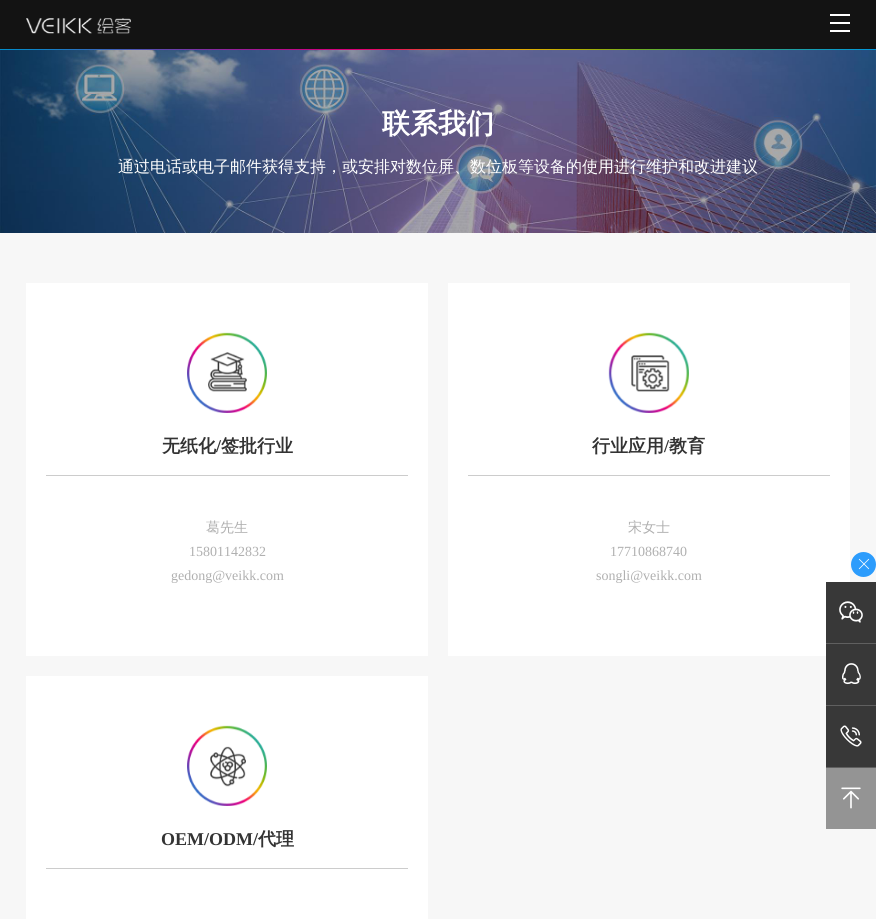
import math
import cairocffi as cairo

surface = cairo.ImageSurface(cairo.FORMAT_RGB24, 876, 919)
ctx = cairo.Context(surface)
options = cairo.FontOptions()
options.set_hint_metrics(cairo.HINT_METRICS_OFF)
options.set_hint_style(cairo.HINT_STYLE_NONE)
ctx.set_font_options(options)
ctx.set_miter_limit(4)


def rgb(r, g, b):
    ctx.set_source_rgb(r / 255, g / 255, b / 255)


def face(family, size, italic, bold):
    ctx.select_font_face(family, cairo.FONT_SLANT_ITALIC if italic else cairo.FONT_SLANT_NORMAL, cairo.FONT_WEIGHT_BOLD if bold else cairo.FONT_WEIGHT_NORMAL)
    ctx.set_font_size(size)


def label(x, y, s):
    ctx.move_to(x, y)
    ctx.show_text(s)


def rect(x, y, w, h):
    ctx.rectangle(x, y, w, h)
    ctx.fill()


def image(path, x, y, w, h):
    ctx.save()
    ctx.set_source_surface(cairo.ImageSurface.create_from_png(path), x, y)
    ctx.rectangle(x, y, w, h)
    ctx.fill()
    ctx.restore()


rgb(247, 247, 247)
ctx.paint()
rgb(19, 19, 19)
rect(0, 0, 876, 49)
image('image0.png', 26, 18, 105, 16)
rgb(255, 255, 255)
rect(830, 14, 20, 2)
rect(830, 22, 20, 2)
rect(830, 30, 20, 2)
image('image1.png', 0, 49, 876, 1)
image('image2.png', 0, 50, 876, 183)
face('WenQuanYi Zen Hei', 28, 0, 1)
label(382, 133, '联系我们')
face('WenQuanYi Zen Hei Medium', 16, 0, 0)
label(118, 172, '通过电话或电子邮件获得支持，或安排对数位屏、数位板等设备的使用进行维护和改进建议')
rect(26, 283, 402, 373)
image('image3.png', 187, 332, 80, 81)
rgb(204, 204, 204)
rect(46, 475, 362, 1)
face('WenQuanYi Zen Hei', 18, 0, 1)
rgb(51, 51, 51)
label(162, 452, '无纸化')
face('Liberation Serif', 18, 0, 1)
label(216, 452, '/')
face('WenQuanYi Zen Hei', 18, 0, 1)
label(221, 452, '签批行业')
face('WenQuanYi Zen Hei Medium', 14, 0, 0)
rgb(176, 176, 176)
label(206, 532, '葛先生')
face('Liberation Serif', 14, 0, 0)
label(189, 556, '15801142832')
label(171, 580, 'gedong@veikk.com')
rgb(255, 255, 255)
rect(448, 283, 402, 373)
image('image4.png', 608, 332, 81, 81)
rgb(204, 204, 204)
rect(468, 475, 362, 1)
face('WenQuanYi Zen Hei', 18, 0, 1)
rgb(51, 51, 51)
label(592, 452, '行业应用')
face('Liberation Serif', 18, 0, 1)
label(664, 452, '/')
face('WenQuanYi Zen Hei', 18, 0, 1)
label(669, 452, '教育')
face('WenQuanYi Zen Hei Medium', 14, 0, 0)
rgb(176, 176, 176)
label(628, 532, '宋女士')
face('Liberation Serif', 14, 0, 0)
label(610, 556, '17710868740')
label(596, 580, 'songli@veikk.com')
rgb(255, 255, 255)
rect(26, 676, 402, 243)
image('image5.png', 187, 725, 80, 81)
rgb(204, 204, 204)
rect(46, 868, 362, 1)
face('Liberation Serif', 18, 0, 1)
rgb(51, 51, 51)
label(161, 845, 'OEM/ODM/')
face('WenQuanYi Zen Hei', 18, 0, 1)
label(258, 845, '代理')
rgb(44, 156, 252)
ctx.new_path()
ctx.arc(863.5, 564.5, 12.5, 0, 2 * math.pi)
ctx.fill()
image('image6.png', 858, 558, 12, 12)
rgb(56, 56, 56)
rect(826, 582, 50, 61)
rgb(96, 96, 96)
rect(826, 643, 50, 1)
image('image7.png', 839, 601, 24, 22)
rgb(56, 56, 56)
rect(826, 644, 50, 61)
rgb(96, 96, 96)
rect(826, 705, 50, 1)
image('image8.png', 842, 663, 19, 22)
rgb(56, 56, 56)
rect(826, 706, 50, 61)
rgb(96, 96, 96)
rect(826, 767, 50, 1)
image('image9.png', 840, 725, 22, 22)
rgb(148, 148, 148)
rect(826, 768, 50, 61)
image('image10.png', 841, 787, 20, 22)
surface.write_to_png('render.png')
